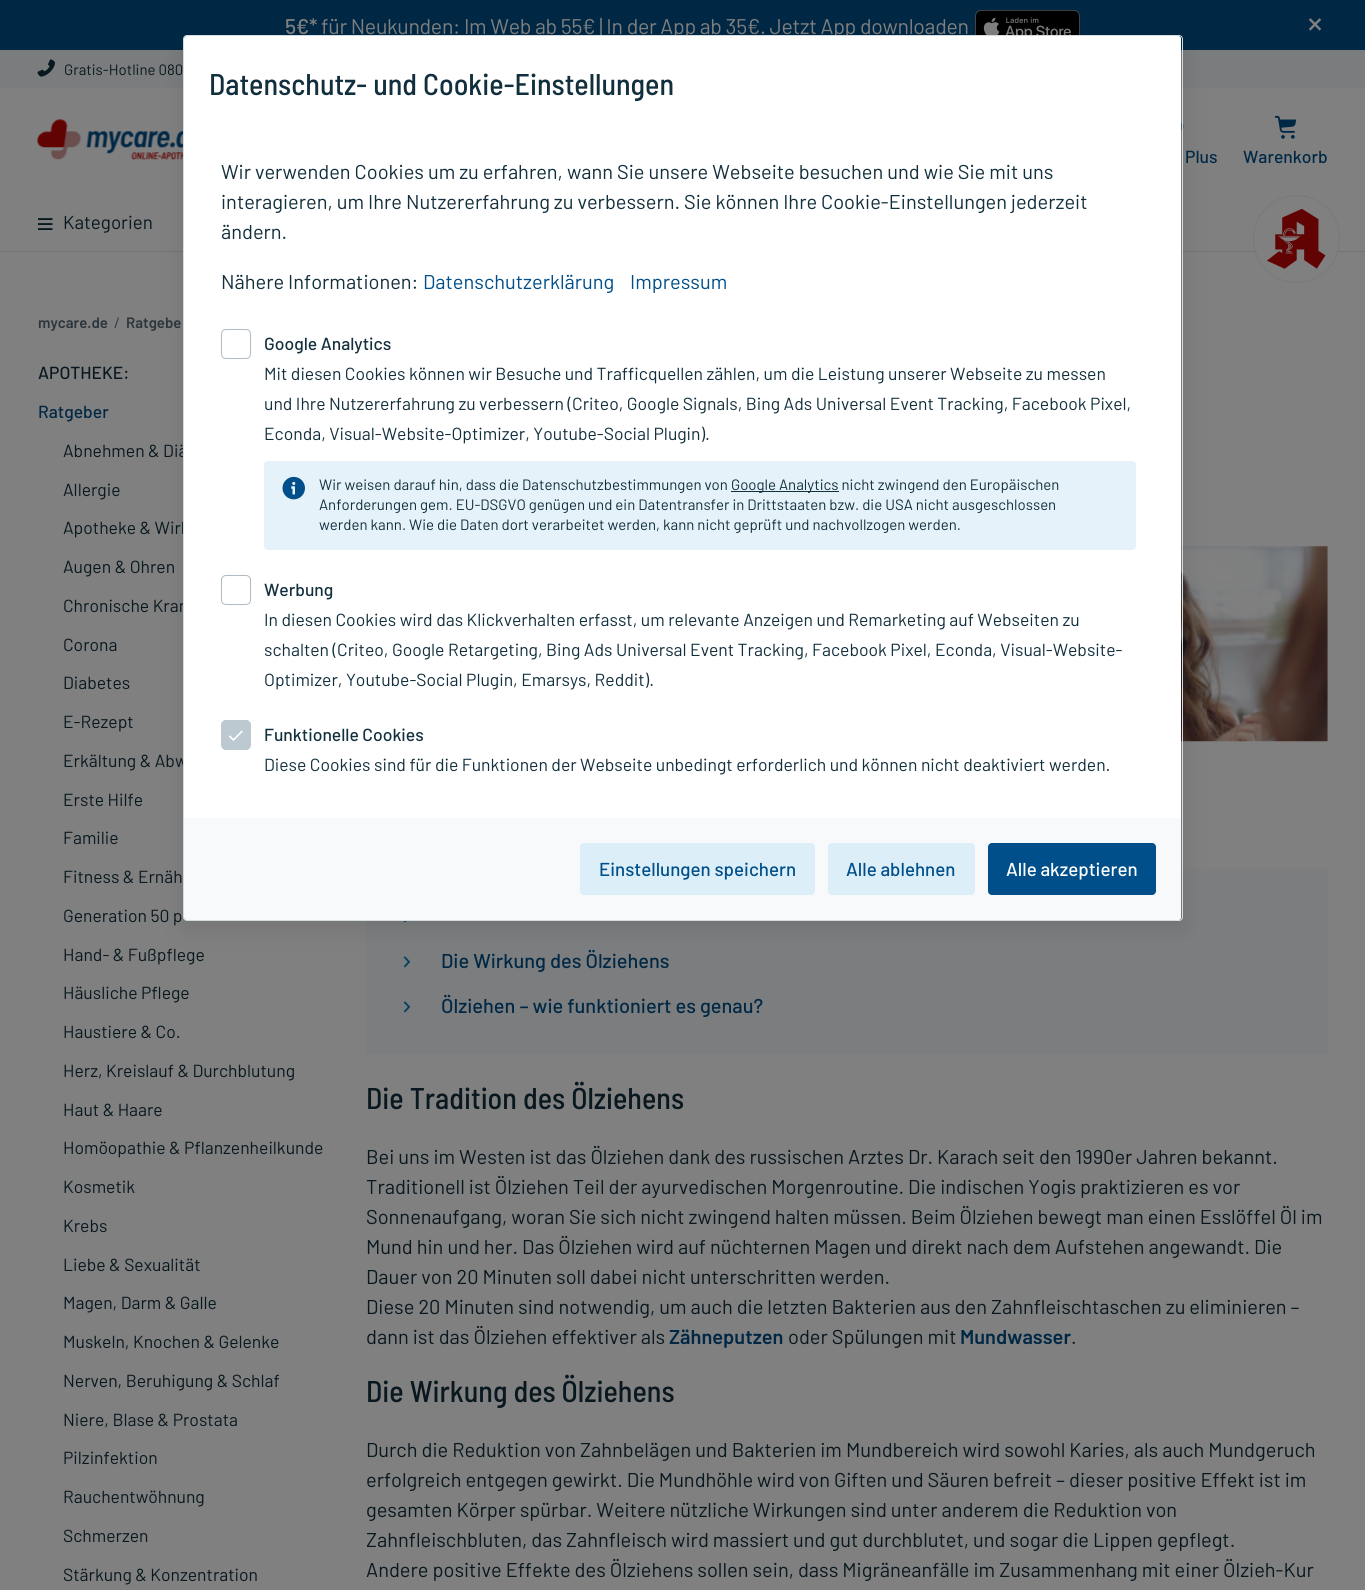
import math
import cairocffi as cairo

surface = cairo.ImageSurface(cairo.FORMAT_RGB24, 1365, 1590)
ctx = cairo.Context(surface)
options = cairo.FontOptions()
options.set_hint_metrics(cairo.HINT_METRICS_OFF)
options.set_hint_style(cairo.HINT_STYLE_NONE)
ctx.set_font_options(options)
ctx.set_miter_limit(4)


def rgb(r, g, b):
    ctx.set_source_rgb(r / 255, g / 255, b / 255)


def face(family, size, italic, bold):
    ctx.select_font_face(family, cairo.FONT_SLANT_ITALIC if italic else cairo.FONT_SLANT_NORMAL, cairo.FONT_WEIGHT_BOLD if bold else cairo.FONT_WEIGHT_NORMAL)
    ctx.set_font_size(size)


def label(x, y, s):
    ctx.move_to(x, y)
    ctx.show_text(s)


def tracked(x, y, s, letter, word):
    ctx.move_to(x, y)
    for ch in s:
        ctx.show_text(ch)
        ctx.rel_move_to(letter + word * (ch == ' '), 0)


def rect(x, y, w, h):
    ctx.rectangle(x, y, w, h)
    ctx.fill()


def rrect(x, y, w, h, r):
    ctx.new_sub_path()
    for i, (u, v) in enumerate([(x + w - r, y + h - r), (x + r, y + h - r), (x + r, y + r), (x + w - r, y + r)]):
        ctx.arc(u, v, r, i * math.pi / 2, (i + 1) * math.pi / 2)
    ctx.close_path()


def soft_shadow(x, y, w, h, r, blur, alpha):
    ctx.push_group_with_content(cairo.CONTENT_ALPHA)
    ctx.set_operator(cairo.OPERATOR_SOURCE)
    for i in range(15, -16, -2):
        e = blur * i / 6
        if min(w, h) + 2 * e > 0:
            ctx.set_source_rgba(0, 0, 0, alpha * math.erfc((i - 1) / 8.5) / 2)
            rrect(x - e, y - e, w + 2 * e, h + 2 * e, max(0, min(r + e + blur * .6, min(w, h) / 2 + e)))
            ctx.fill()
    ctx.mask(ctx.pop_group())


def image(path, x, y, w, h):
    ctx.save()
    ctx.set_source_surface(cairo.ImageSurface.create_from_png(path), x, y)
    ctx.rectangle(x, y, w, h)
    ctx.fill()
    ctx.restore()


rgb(128, 128, 128)
ctx.paint()
rgb(113, 116, 118)
rect(0, 251, 1365, 1)
rgb(0, 40, 69)
rect(0, 0, 1365, 50)
face('Barlow Medium', 21.25, 0, 0)
rgb(128, 128, 128)
tracked(285, 34, '5€*', -0.3, 0)
face('Barlow', 21.25, 0, 0)
tracked(321, 34, 'für Neukunden: Im Web ab 55€ | In der App ab 35€. Jetzt App downloaden', -0.3, 0)
image('image0.png', 975, 10, 105, 25)
image('image1.png', 1308, 18, 14, 13)
rgb(123, 124, 125)
rect(0, 50, 1365, 38)
image('image2.png', 37, 59, 18, 18)
face('Barlow', 15, 0, 0)
rgb(9, 24, 31)
label(64, 75, 'Gratis-Hotline 080')
image('image3.png', 37, 119, 146, 41)
image('image4.png', 1181, 123, 3, 7)
face('Barlow Medium', 17.5, 0, 0)
rgb(0, 40, 69)
label(1185, 163, 'Plus')
image('image5.png', 1275, 115, 22, 24)
label(1243, 163, 'Warenkorb')
image('image6.png', 38, 218, 15, 12)
face('Barlow', 18.75, 0, 0)
rgb(9, 24, 31)
label(63, 229, 'Kategorien')
rgb(128, 128, 128)
rrect(1253.5, 195.5, 86, 87, 43)
ctx.fill_preserve()
rgb(119, 121, 123)
ctx.set_line_width(1)
ctx.stroke()
image('image7.png', 1267, 209, 59, 60)
image('image10.png', 1181, 546, 147, 196)
rgb(124, 125, 126)
rect(366, 869, 962, 185)
image('image11.png', 403, 921, 4, 2)
image('image12.png', 403, 956, 7, 12)
rgb(0, 0, 0)
soft_shadow(183, 41, 1000, 887, 4, 12.5, 0.1)
face('Barlow', 17.5, 0, 0)
rgb(9, 24, 31)
label(63, 457, 'Abnehmen & Diä')
label(63, 534, 'Apotheke & Wirk')
label(63, 612, 'Chronische Kran')
label(63, 767, 'Erkältung & Abw')
rgb(255, 255, 255)
rrect(184, 36, 997, 884, 2.5)
ctx.fill()
rrect(183.5, 35.5, 999, 885, 3.5)
rgb(213, 220, 224)
ctx.stroke()
face('Barlow Semi Condensed Medium', 30, 0, 0)
rgb(18, 47, 61)
label(209, 95, 'Datenschutz- und Cookie-Einstellungen')
face('Barlow', 20, 0, 0)
label(221, 179, 'Wir verwenden Cookies um zu erfahren, wann Sie unsere Webseite besuchen und wie Sie mit uns')
label(221, 209, 'interagieren, um Ihre Nutzererfahrung zu verbessern. Sie können Ihre Cookie-Einstellungen jederzeit')
label(221, 239, 'ändern.')
label(221, 289, 'Nähere Informationen:')
rgb(0, 79, 138)
label(423, 289, 'Datenschutzerklärung')
label(630, 289, 'Impressum')
rrect(221.5, 329.5, 29, 29, 4.5)
rgb(175, 188, 196)
ctx.stroke()
face('Barlow Medium', 17.5, 0, 0)
rgb(18, 47, 61)
label(264, 350, 'Google Analytics')
face('Barlow', 17.5, 0, 0)
label(264, 380, 'Mit diesen Cookies können wir Besuche und Trafficquellen zählen, um die Leistung unserer Webseite zu messen')
label(264, 410, 'und Ihre Nutzererfahrung zu verbessern (Criteo, Google Signals, Bing Ads Universal Event Tracking, Facebook Pixel,')
label(264, 440, 'Econda, Visual-Website-Optimizer, Youtube-Social Plugin).')
rgb(230, 242, 249)
rrect(264, 461, 872, 89, 4)
ctx.fill()
image('image8.png', 282, 476, 23, 24)
face('Barlow', 15, 0, 0)
rgb(18, 47, 61)
label(319, 490, 'Wir weisen darauf hin, dass die Datenschutzbestimmungen von')
rect(731, 491, 108, 1)
label(731, 490, 'Google Analytics nicht zwingend den Europäischen')
label(319, 510, 'Anforderungen gem. EU-DSGVO genügen und ein Datentransfer in Drittstaaten bzw. die USA nicht ausgeschlossen')
label(319, 530, 'werden kann. Wie die Daten dort verarbeitet werden, kann nicht geprüft und nachvollzogen werden.')
rrect(221.5, 575.5, 29, 29, 4.5)
rgb(175, 188, 196)
ctx.stroke()
face('Barlow Medium', 17.5, 0, 0)
rgb(18, 47, 61)
label(264, 596, 'Werbung')
face('Barlow', 17.5, 0, 0)
label(264, 626, 'In diesen Cookies wird das Klickverhalten erfasst, um relevante Anzeigen und Remarketing auf Webseiten zu')
label(264, 656, 'schalten (Criteo, Google Retargeting, Bing Ads Universal Event Tracking, Facebook Pixel, Econda, Visual-Website-')
label(264, 686, 'Optimizer, Youtube-Social Plugin, Emarsys, Reddit).')
rgb(188, 201, 209)
rrect(221.5, 720.5, 29, 29, 4.5)
ctx.fill_preserve()
ctx.stroke()
image('image9.png', 228, 730, 15, 11)
face('Barlow Medium', 17.5, 0, 0)
rgb(18, 47, 61)
label(264, 741, 'Funktionelle Cookies')
face('Barlow', 17.5, 0, 0)
label(264, 771, 'Diese Cookies sind für die Funktionen der Webseite unbedingt erforderlich und können nicht deaktiviert werden.')
rgb(247, 249, 251)
ctx.new_path()
ctx.move_to(184, 818)
ctx.line_to(1181, 818)
ctx.line_to(1181, 916)
ctx.curve_to(1181, 918, 1179, 920, 1177, 920)
ctx.line_to(188, 920)
ctx.curve_to(186, 920, 184, 918, 184, 916)
ctx.close_path()
ctx.fill()
rgb(220, 238, 248)
rrect(580, 843, 235, 52, 4)
ctx.fill()
face('Barlow Medium', 18.75, 0, 0)
rgb(0, 79, 138)
label(599, 876, 'Einstellungen speichern')
rgb(220, 238, 248)
rrect(828, 843, 147, 52, 4)
ctx.fill()
rgb(0, 79, 138)
label(846, 876, 'Alle ablehnen')
rrect(988, 843, 168, 52, 4)
ctx.fill()
rgb(255, 255, 255)
label(1006, 876, 'Alle akzeptieren')
face('Barlow SemiBold', 15, 0, 0)
rgb(42, 53, 60)
label(38, 328, 'mycare.de')
face('Barlow', 15, 0, 0)
label(114, 328, '/')
face('Barlow SemiBold', 15, 0, 0)
label(126, 328, 'Ratgebe')
face('Barlow Medium', 17.5, 0, 0)
rgb(9, 24, 31)
label(38, 379, 'APOTHEKE:')
rgb(0, 40, 69)
label(38, 418, 'Ratgeber')
face('Barlow', 17.5, 0, 0)
rgb(9, 24, 31)
label(63, 496, 'Allergie')
label(63, 573, 'Augen & Ohren')
label(63, 651, 'Corona')
label(63, 689, 'Diabetes')
label(63, 728, 'E-Rezept')
label(63, 806, 'Erste Hilfe')
label(63, 844, 'Familie')
label(63, 883, 'Fitness & Ernäh')
label(63, 922, 'Generation 50 p')
label(63, 961, 'Hand- & Fußpflege')
label(63, 999, 'Häusliche Pflege')
label(63, 1038, 'Haustiere & Co.')
label(63, 1077, 'Herz, Kreislauf & Durchblutung')
label(63, 1116, 'Haut & Haare')
label(63, 1154, 'Homöopathie & Pflanzenheilkunde')
label(63, 1193, 'Kosmetik')
label(63, 1232, 'Krebs')
label(63, 1271, 'Liebe & Sexualität')
label(63, 1309, 'Magen, Darm & Galle')
label(63, 1348, 'Muskeln, Knochen & Gelenke')
label(63, 1387, 'Nerven, Beruhigung & Schlaf')
label(63, 1426, 'Niere, Blase & Prostata')
label(63, 1464, 'Pilzinfektion')
label(63, 1503, 'Rauchentwöhnung')
label(63, 1542, 'Schmerzen')
label(63, 1581, 'Stärkung & Konzentration')
face('Barlow Medium', 20, 0, 0)
rgb(0, 40, 69)
label(441, 968, 'Die Wirkung des Ölziehens')
image('image12.png', 403, 1001, 7, 12)
label(441, 1013, 'Ölziehen – wie funktioniert es genau?')
face('Barlow Semi Condensed Medium', 30, 0, 0)
rgb(9, 24, 31)
label(366, 1109, 'Die Tradition des Ölziehens')
face('Barlow', 20, 0, 0)
label(366, 1164, 'Bei uns im Westen ist das Ölziehen dank des russischen Arztes Dr. Karach seit den 1990er Jahren bekannt.')
label(366, 1194, 'Traditionell ist Ölziehen Teil der ayurvedischen Morgenroutine. Die indischen Yogis praktizieren es vor')
label(366, 1224, 'Sonnenaufgang, woran Sie sich nicht zwingend halten müssen. Beim Ölziehen bewegt man einen Esslöffel Öl im')
label(366, 1254, 'Mund hin und her. Das Ölziehen wird auf nüchternen Magen und direkt nach dem Aufstehen angewandt. Die')
label(366, 1284, 'Dauer von 20 Minuten soll dabei nicht unterschritten werden.')
label(366, 1314, 'Diese 20 Minuten sind notwendig, um auch die letzten Bakterien aus den Zahnfleischtaschen zu eliminieren –')
label(366, 1344, 'dann ist das Ölziehen effektiver als')
face('Barlow SemiBold', 20, 0, 0)
rgb(0, 40, 69)
label(669, 1344, 'Zähneputzen')
face('Barlow', 20, 0, 0)
rgb(9, 24, 31)
label(788, 1344, 'oder Spülungen mit')
face('Barlow SemiBold', 20, 0, 0)
rgb(0, 40, 69)
label(960, 1344, 'Mundwasser')
face('Barlow', 20, 0, 0)
rgb(9, 24, 31)
label(1071, 1344, '.')
face('Barlow Semi Condensed Medium', 30, 0, 0)
label(366, 1402, 'Die Wirkung des Ölziehens')
face('Barlow', 20, 0, 0)
label(366, 1457, 'Durch die Reduktion von Zahnbelägen und Bakterien im Mundbereich wird sowohl Karies, als auch Mundgeruch')
label(366, 1487, 'erfolgreich entgegen gewirkt. Die Mundhöhle wird von Giften und Säuren befreit – dieser positive Effekt ist im')
label(366, 1517, 'gesamten Körper spürbar. Weitere nützliche Wirkungen sind unter anderem die Reduktion von')
label(366, 1547, 'Zahnfleischbluten, das Zahnfleisch wird massiert und gut durchblutet, und sogar die Lippen gepflegt.')
label(366, 1577, 'Andere positive Effekte des Ölziehens sollen sein, dass Migräneanfälle im Zusammenhang mit einer Ölzieh-Kur')
surface.write_to_png('render.png')
